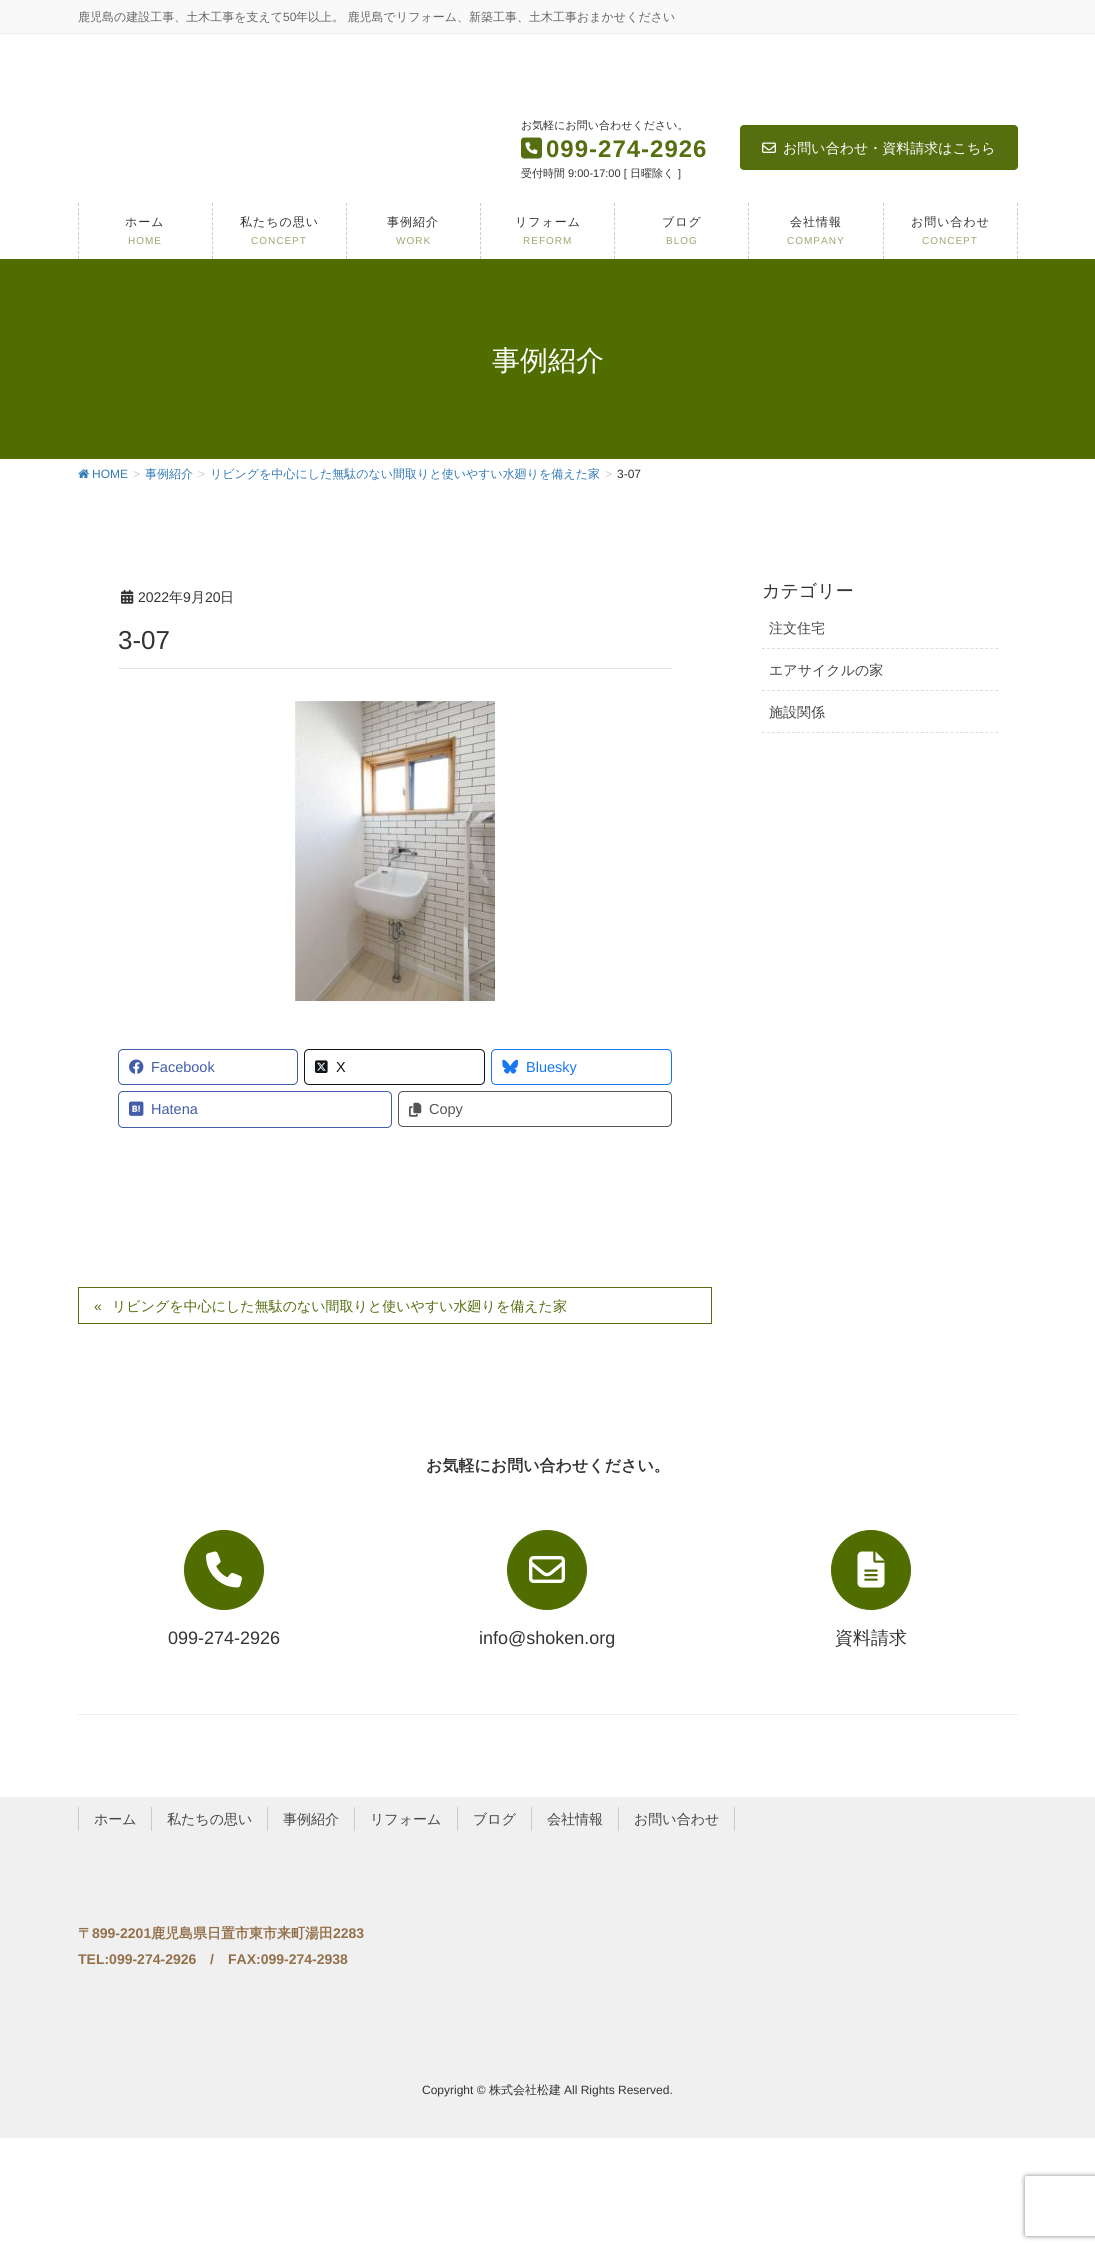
import math
import cairocffi as cairo

surface = cairo.ImageSurface(cairo.FORMAT_RGB24, 1095, 2250)
ctx = cairo.Context(surface)
options = cairo.FontOptions()
options.set_hint_metrics(cairo.HINT_METRICS_OFF)
options.set_hint_style(cairo.HINT_STYLE_NONE)
ctx.set_font_options(options)
ctx.set_miter_limit(4)


def rgb(r, g, b):
    ctx.set_source_rgb(r / 255, g / 255, b / 255)


def face(family, size, italic, bold):
    ctx.select_font_face(family, cairo.FONT_SLANT_ITALIC if italic else cairo.FONT_SLANT_NORMAL, cairo.FONT_WEIGHT_BOLD if bold else cairo.FONT_WEIGHT_NORMAL)
    ctx.set_font_size(size)


def label(x, y, s):
    ctx.move_to(x, y)
    ctx.show_text(s)


def tracked(x, y, s, letter, word):
    ctx.move_to(x, y)
    for ch in s:
        ctx.show_text(ch)
        ctx.rel_move_to(letter + word * (ch == ' '), 0)


def rect(x, y, w, h):
    ctx.rectangle(x, y, w, h)
    ctx.fill()


def rrect(x, y, w, h, r):
    ctx.new_sub_path()
    for i, (u, v) in enumerate([(x + w - r, y + h - r), (x + r, y + h - r), (x + r, y + r), (x + w - r, y + r)]):
        ctx.arc(u, v, r, i * math.pi / 2, (i + 1) * math.pi / 2)
    ctx.close_path()


def soft_shadow(x, y, w, h, r, blur, alpha):
    ctx.push_group_with_content(cairo.CONTENT_ALPHA)
    ctx.set_operator(cairo.OPERATOR_SOURCE)
    for i in range(15, -16, -2):
        e = blur * i / 6
        if min(w, h) + 2 * e > 0:
            ctx.set_source_rgba(0, 0, 0, alpha * math.erfc((i - 1) / 8.5) / 2)
            rrect(x - e, y - e, w + 2 * e, h + 2 * e, max(0, min(r + e + blur * .6, min(w, h) / 2 + e)))
            ctx.fill()
    ctx.mask(ctx.pop_group())


def image(path, x, y, w, h):
    ctx.save()
    ctx.set_source_surface(cairo.ImageSurface.create_from_png(path), x, y)
    ctx.rectangle(x, y, w, h)
    ctx.fill()
    ctx.restore()


rgb(255, 255, 255)
ctx.paint()
rgb(249, 249, 249)
rect(0, 0, 1095, 33)
rgb(239, 239, 239)
rect(0, 33, 1095, 1)
face('WenQuanYi Zen Hei Medium', 12, 0, 0)
rgb(102, 102, 102)
label(78, 21, '鹿児島の建設工事、土木工事を支えて')
face('Liberation Sans', 12, 0, 0)
label(283, 21, '50')
face('WenQuanYi Zen Hei Medium', 12, 0, 0)
label(296, 21, '年以上。 鹿児島でリフォーム、新築工事、土木工事おまかせください')
face('WenQuanYi Zen Hei Medium', 11, 0, 0)
rgb(51, 51, 51)
label(521, 129, 'お気軽にお問い合わせください。')
image('image0.png', 521, 137, 21, 22)
face('Liberation Sans', 24, 0, 1)
rgb(85, 110, 16)
tracked(546, 157, '099-274-2926', 1, 0)
face('WenQuanYi Zen Hei Medium', 11, 0, 0)
rgb(51, 51, 51)
label(521, 177, '受付時間')
face('Liberation Sans', 11, 0, 0)
label(568, 177, '9:00-17:00 [')
face('WenQuanYi Zen Hei Medium', 11, 0, 0)
label(630, 177, '日曜除く')
face('Liberation Sans', 11, 0, 0)
label(678, 177, ']')
rgb(85, 110, 16)
rrect(740.5, 125.5, 277, 44, 3.5)
ctx.fill_preserve()
rgb(80, 109, 0)
ctx.set_line_width(1)
ctx.stroke()
image('image1.png', 762, 142, 14, 11)
face('WenQuanYi Zen Hei Medium', 14, 0, 0)
rgb(255, 255, 255)
label(783, 153, 'お問い合わせ・資料請求はこちら')
ctx.new_path()
ctx.move_to(78.5, 203)
ctx.line_to(78.5, 259)
rgb(204, 204, 204)
ctx.set_dash([3, 1.82])
ctx.stroke()
face('WenQuanYi Zen Hei Medium', 12, 0, 0)
rgb(51, 51, 51)
tracked(125, 226, 'ホーム', 1, 0)
face('Liberation Sans', 10, 0, 0)
rgb(153, 168, 112)
tracked(128, 244, 'HOME', 1, 0)
ctx.new_path()
ctx.move_to(212.5, 203)
ctx.line_to(212.5, 259)
rgb(204, 204, 204)
ctx.stroke()
face('WenQuanYi Zen Hei Medium', 12, 0, 0)
rgb(51, 51, 51)
tracked(240, 226, '私たちの思い', 1, 0)
face('Liberation Sans', 10, 0, 0)
rgb(153, 168, 112)
tracked(251, 244, 'CONCEPT', 1, 0)
ctx.new_path()
ctx.move_to(346.5, 203)
ctx.line_to(346.5, 259)
rgb(204, 204, 204)
ctx.stroke()
face('WenQuanYi Zen Hei Medium', 12, 0, 0)
rgb(51, 51, 51)
tracked(387, 226, '事例紹介', 1, 0)
face('Liberation Sans', 10, 0, 0)
rgb(153, 168, 112)
tracked(396, 244, 'WORK', 1, 0)
ctx.new_path()
ctx.move_to(480.5, 203)
ctx.line_to(480.5, 259)
rgb(204, 204, 204)
ctx.stroke()
face('WenQuanYi Zen Hei Medium', 12, 0, 0)
rgb(51, 51, 51)
tracked(515, 226, 'リフォーム', 1, 0)
face('Liberation Sans', 10, 0, 0)
rgb(153, 168, 112)
tracked(523, 244, 'REFORM', 1, 0)
ctx.new_path()
ctx.move_to(614.5, 203)
ctx.line_to(614.5, 259)
rgb(204, 204, 204)
ctx.stroke()
face('WenQuanYi Zen Hei Medium', 12, 0, 0)
rgb(51, 51, 51)
tracked(662, 226, 'ブログ', 1, 0)
face('Liberation Sans', 10, 0, 0)
rgb(153, 168, 112)
tracked(666, 244, 'BLOG', 1, 0)
ctx.new_path()
ctx.move_to(748.5, 203)
ctx.line_to(748.5, 259)
rgb(204, 204, 204)
ctx.stroke()
face('WenQuanYi Zen Hei Medium', 12, 0, 0)
rgb(51, 51, 51)
tracked(790, 226, '会社情報', 1, 0)
face('Liberation Sans', 10, 0, 0)
rgb(153, 168, 112)
tracked(787, 244, 'COMPANY', 1, 0)
ctx.new_path()
ctx.move_to(1017.5, 203)
ctx.line_to(1017.5, 259)
rgb(204, 204, 204)
ctx.stroke()
ctx.new_path()
ctx.move_to(883.5, 203)
ctx.line_to(883.5, 259)
ctx.stroke()
face('WenQuanYi Zen Hei Medium', 12, 0, 0)
rgb(51, 51, 51)
tracked(911, 226, 'お問い合わせ', 1, 0)
face('Liberation Sans', 10, 0, 0)
rgb(153, 168, 112)
tracked(922, 244, 'CONCEPT', 1, 0)
rgb(80, 109, 0)
rect(0, 259, 1095, 200)
face('WenQuanYi Zen Hei Medium', 28, 0, 0)
rgb(255, 255, 255)
label(492, 370, '事例紹介')
image('image2.png', 78, 469, 11, 9)
face('Liberation Sans', 12, 0, 0)
rgb(51, 122, 183)
label(92, 478, 'HOME')
rgb(204, 204, 204)
label(133, 478, '>')
face('WenQuanYi Zen Hei Medium', 12, 0, 0)
rgb(51, 122, 183)
label(145, 478, '事例紹介')
face('Liberation Sans', 12, 0, 0)
rgb(204, 204, 204)
label(198, 478, '>')
face('WenQuanYi Zen Hei Medium', 12, 0, 0)
rgb(51, 122, 183)
label(210, 478, 'リビングを中心にした無駄のない間取りと使いやすい水廻りを備えた家')
face('Liberation Sans', 12, 0, 0)
rgb(204, 204, 204)
label(605, 478, '>')
rgb(51, 51, 51)
label(617, 478, '3-07')
rgb(229, 229, 229)
rect(118, 668, 554, 1)
image('image3.png', 121, 589, 13, 15)
face('Liberation Sans', 14, 0, 0)
rgb(51, 51, 51)
label(138, 602, '2022')
face('WenQuanYi Zen Hei Medium', 14, 0, 0)
label(169, 602, '年')
face('Liberation Sans', 14, 0, 0)
label(183, 602, '9')
face('WenQuanYi Zen Hei Medium', 14, 0, 0)
label(191, 602, '月')
face('Liberation Sans', 14, 0, 0)
label(205, 602, '20')
face('WenQuanYi Zen Hei Medium', 14, 0, 0)
label(220, 602, '日')
face('Liberation Sans', 26, 0, 0)
label(118, 649, '3-07')
image('image4.png', 295, 701, 200, 300)
rrect(118.5, 1049.5, 179, 35, 4.5)
rgb(66, 93, 171)
ctx.set_dash([])
ctx.stroke()
image('image5.png', 129, 1059, 15, 15)
face('Liberation Sans', 14.5, 0, 0)
label(151, 1072, 'Facebook')
rrect(304.5, 1049.5, 180, 35, 4.5)
rgb(15, 20, 25)
ctx.stroke()
image('image6.png', 315, 1060, 13, 13)
label(336, 1072, 'X')
rrect(491.5, 1049.5, 180, 35, 4.5)
rgb(24, 119, 242)
ctx.stroke()
image('image7.png', 502, 1059, 16, 15)
label(526, 1072, 'Bluesky')
rrect(118.5, 1091.5, 273, 36, 4.5)
rgb(66, 93, 171)
ctx.stroke()
image('image8.png', 129, 1101, 15, 15)
label(151, 1114, 'Hatena')
rrect(398.5, 1091.5, 273, 35, 4.5)
rgb(85, 85, 85)
ctx.stroke()
image('image9.png', 409, 1102, 13, 15)
label(429, 1114, 'Copy')
ctx.rectangle(78.5, 1287.5, 633, 36)
rgb(85, 110, 16)
ctx.stroke()
face('Liberation Sans', 14, 0, 0)
label(94, 1311, '«')
face('WenQuanYi Zen Hei Medium', 14, 0, 0)
label(112, 1311, 'リビングを中心にした無駄のない間取りと使いやすい水廻りを備えた家')
face('WenQuanYi Zen Hei Medium', 18, 0, 0)
rgb(51, 51, 51)
label(762, 597, 'カテゴリー')
ctx.new_path()
ctx.move_to(762, 648.5)
ctx.line_to(998, 648.5)
rgb(221, 221, 221)
ctx.set_dash([3, 1.96])
ctx.stroke()
face('WenQuanYi Zen Hei Medium', 14, 0, 0)
rgb(70, 70, 70)
label(769, 633, '注文住宅')
ctx.new_path()
ctx.move_to(762, 690.5)
ctx.line_to(998, 690.5)
rgb(221, 221, 221)
ctx.stroke()
rgb(70, 70, 70)
label(769, 675, 'エアサイクルの家')
ctx.new_path()
ctx.move_to(762, 732.5)
ctx.line_to(998, 732.5)
rgb(221, 221, 221)
ctx.stroke()
rgb(70, 70, 70)
label(769, 717, '施設関係')
face('WenQuanYi Zen Hei', 16, 0, 1)
rgb(51, 51, 51)
label(426, 1471, 'お気軽にお問い合わせください。')
rgb(80, 109, 0)
ctx.new_path()
ctx.arc(224, 1570, 39.5, 0, 2 * math.pi)
ctx.fill_preserve()
ctx.set_dash([])
ctx.stroke()
image('image10.png', 206, 1551, 36, 37)
face('Liberation Sans', 18, 0, 0)
rgb(51, 51, 51)
label(168, 1644, '099-274-2926')
rgb(80, 109, 0)
ctx.new_path()
ctx.arc(547, 1570, 39.5, 0, 2 * math.pi)
ctx.fill_preserve()
ctx.stroke()
image('image11.png', 529, 1556, 36, 27)
rgb(51, 51, 51)
label(479, 1644, 'info@shoken.org')
rgb(80, 109, 0)
ctx.new_path()
ctx.arc(871, 1570, 39.5, 0, 2 * math.pi)
ctx.fill_preserve()
ctx.stroke()
image('image12.png', 857, 1551, 28, 37)
face('WenQuanYi Zen Hei Medium', 18, 0, 0)
rgb(51, 51, 51)
label(835, 1644, '資料請求')
rgb(238, 238, 238)
rect(78, 1714, 940, 1)
rgb(240, 240, 240)
rect(0, 1797, 1095, 341)
rgb(204, 204, 204)
rect(78, 1807, 1, 24)
face('WenQuanYi Zen Hei Medium', 14, 0, 0)
rgb(70, 70, 70)
label(94, 1824, 'ホーム')
rgb(204, 204, 204)
rect(151, 1807, 1, 24)
rgb(70, 70, 70)
label(167, 1824, '私たちの思い')
rgb(204, 204, 204)
rect(267, 1807, 1, 24)
rgb(70, 70, 70)
label(283, 1824, '事例紹介')
rgb(204, 204, 204)
rect(354, 1807, 1, 24)
rgb(70, 70, 70)
label(370, 1824, 'リフォーム')
rgb(204, 204, 204)
rect(457, 1807, 1, 24)
rgb(70, 70, 70)
label(473, 1824, 'ブログ')
rgb(204, 204, 204)
rect(531, 1807, 1, 24)
rgb(70, 70, 70)
label(547, 1824, '会社情報')
rgb(204, 204, 204)
rect(734, 1807, 1, 24)
rect(618, 1807, 1, 24)
rgb(70, 70, 70)
label(634, 1824, 'お問い合わせ')
face('WenQuanYi Zen Hei', 14, 0, 1)
rgb(147, 112, 74)
label(78, 1938, '〒')
face('Liberation Sans', 14, 0, 1)
label(92, 1938, '899-2201')
face('WenQuanYi Zen Hei', 14, 0, 1)
label(151, 1938, '鹿児島県日置市東市来町湯田')
face('Liberation Sans', 14, 0, 1)
label(333, 1938, '2283')
label(78, 1964, 'TEL:099-274-2926')
label(210, 1964, '/')
label(228, 1964, 'FAX:099-274-2938')
face('Liberation Sans', 12, 0, 0)
rgb(51, 51, 51)
label(422, 2094, 'Copyright ©')
face('WenQuanYi Zen Hei Medium', 12, 0, 0)
label(489, 2094, '株式会社松建')
face('Liberation Sans', 12, 0, 0)
label(564, 2094, 'All Rights Reserved.')
ctx.save()
ctx.set_fill_rule(cairo.FILL_RULE_EVEN_ODD)
ctx.new_path()
ctx.move_to(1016, 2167)
ctx.line_to(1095, 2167)
ctx.line_to(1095, 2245)
ctx.line_to(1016, 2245)
ctx.close_path()
ctx.move_to(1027, 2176)
ctx.line_to(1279, 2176)
ctx.curve_to(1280, 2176, 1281, 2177, 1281, 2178)
ctx.line_to(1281, 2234)
ctx.curve_to(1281, 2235, 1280, 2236, 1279, 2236)
ctx.line_to(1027, 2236)
ctx.curve_to(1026, 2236, 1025, 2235, 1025, 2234)
ctx.line_to(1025, 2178)
ctx.curve_to(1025, 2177, 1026, 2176, 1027, 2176)
ctx.close_path()
ctx.clip()
rgb(128, 128, 128)
soft_shadow(1025, 2176, 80, 60, 2, 2.5, 1)
ctx.restore()
surface.write_to_png('render.png')
